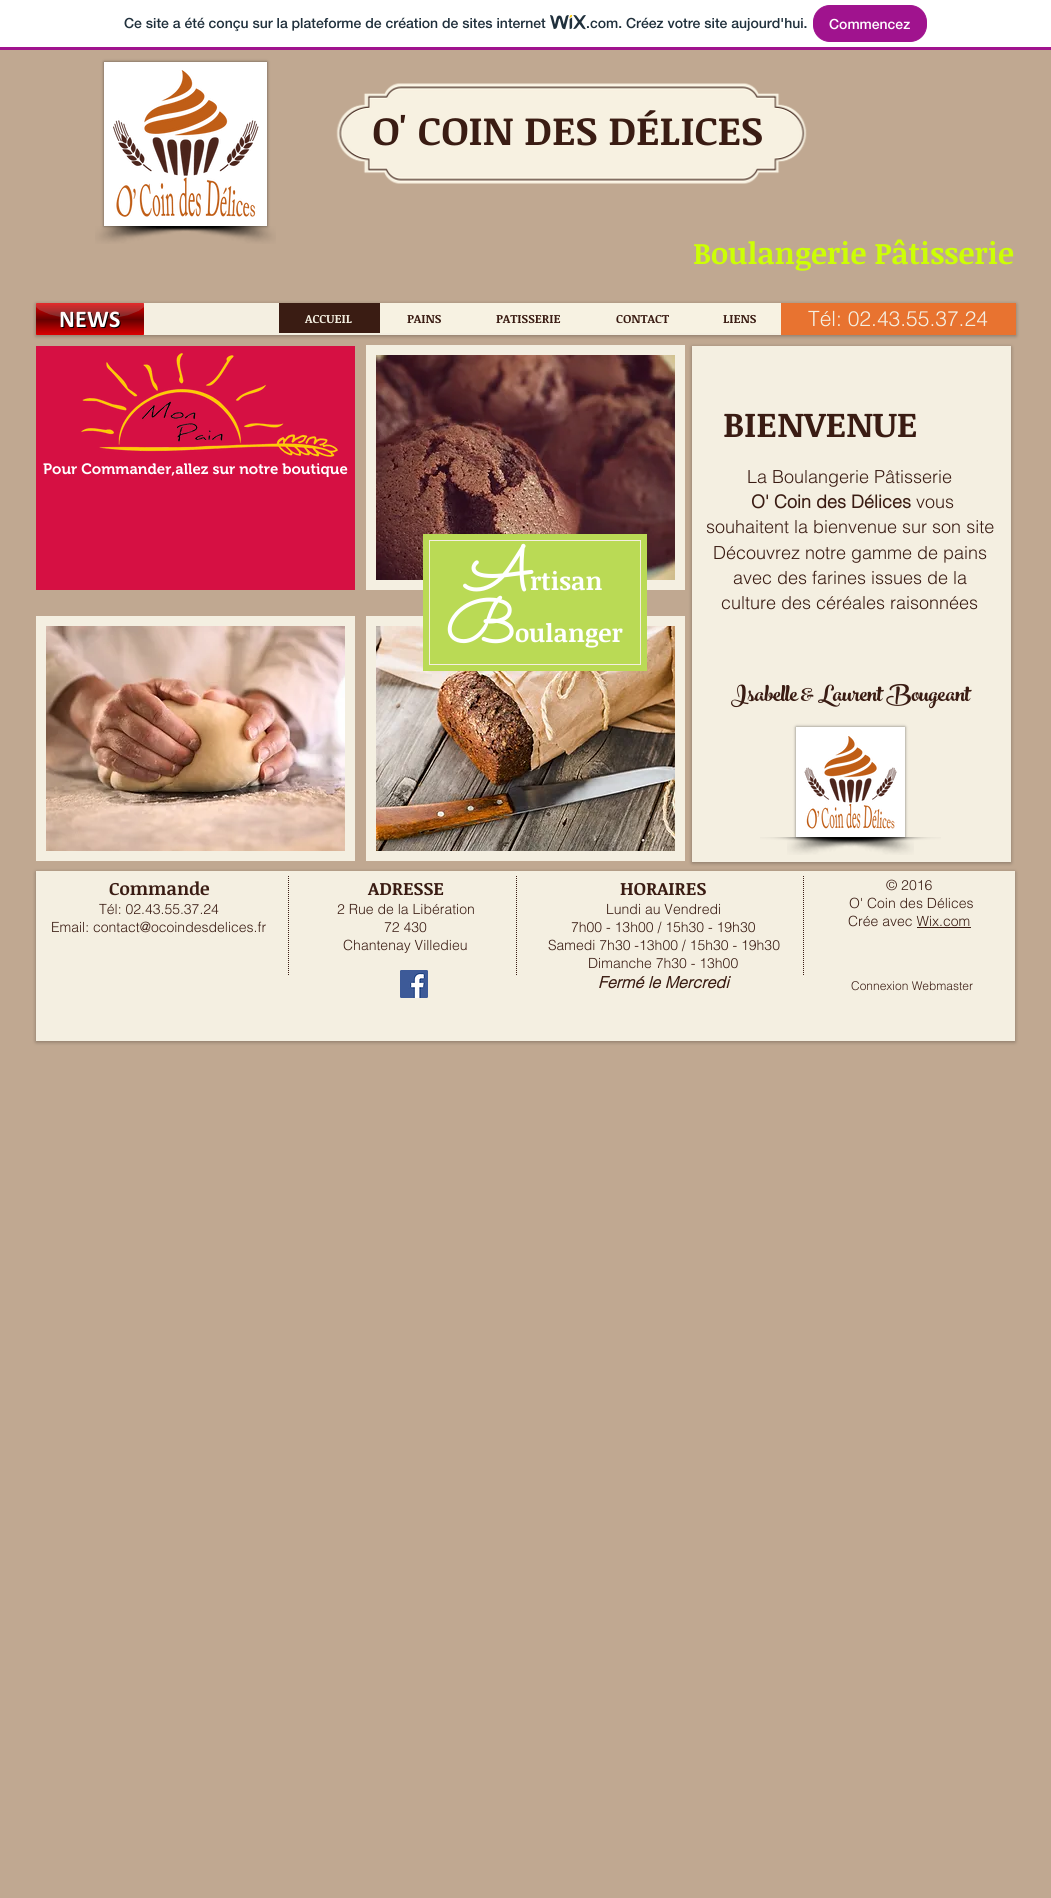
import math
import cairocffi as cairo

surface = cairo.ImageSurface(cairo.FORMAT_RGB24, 1051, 1898)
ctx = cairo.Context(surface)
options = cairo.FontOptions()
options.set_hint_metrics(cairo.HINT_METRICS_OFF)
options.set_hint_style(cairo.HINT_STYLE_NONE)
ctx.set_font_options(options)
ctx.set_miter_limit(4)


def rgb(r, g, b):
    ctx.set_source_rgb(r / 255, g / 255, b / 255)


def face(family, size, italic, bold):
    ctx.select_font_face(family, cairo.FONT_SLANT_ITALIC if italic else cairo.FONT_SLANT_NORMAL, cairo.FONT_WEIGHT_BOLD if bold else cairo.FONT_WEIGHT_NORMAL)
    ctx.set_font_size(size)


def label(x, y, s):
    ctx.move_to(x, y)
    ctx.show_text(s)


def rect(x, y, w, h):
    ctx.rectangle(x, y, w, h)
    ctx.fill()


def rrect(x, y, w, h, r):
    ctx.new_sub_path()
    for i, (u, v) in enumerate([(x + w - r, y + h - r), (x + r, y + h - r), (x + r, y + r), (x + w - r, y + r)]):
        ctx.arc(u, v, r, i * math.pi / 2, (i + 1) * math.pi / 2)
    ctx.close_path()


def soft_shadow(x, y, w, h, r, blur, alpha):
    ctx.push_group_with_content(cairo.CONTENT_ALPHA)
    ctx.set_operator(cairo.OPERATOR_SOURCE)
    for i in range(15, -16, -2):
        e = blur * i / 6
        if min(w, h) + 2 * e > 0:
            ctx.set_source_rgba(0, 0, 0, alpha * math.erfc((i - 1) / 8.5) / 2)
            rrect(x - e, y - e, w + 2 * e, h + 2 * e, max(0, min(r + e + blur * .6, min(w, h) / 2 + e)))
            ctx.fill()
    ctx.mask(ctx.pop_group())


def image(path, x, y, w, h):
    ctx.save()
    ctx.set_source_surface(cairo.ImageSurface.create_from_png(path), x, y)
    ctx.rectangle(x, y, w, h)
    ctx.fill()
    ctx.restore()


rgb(255, 255, 255)
ctx.paint()
rgb(160, 19, 142)
rect(0, 47, 1051, 3)
face('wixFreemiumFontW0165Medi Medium', 14, 0, 0)
rgb(32, 48, 60)
label(124, 28, 'Ce site a été conçu sur la plateforme de création de sites internet')
image('image0.png', 550, 15, 36, 15)
label(586, 28, '.com. Créez votre site aujourd\'hui.')
rgb(160, 19, 142)
rrect(813.5, 5.5, 113, 36, 16.5)
ctx.fill_preserve()
ctx.set_line_width(1)
ctx.stroke()
rgb(255, 255, 255)
label(829, 29, 'Commencez')
rgb(192, 168, 145)
rect(0, 50, 1051, 1848)
rgb(0, 0, 0)
soft_shadow(104, 62, 163, 164, 0, 1.5, 0.5)
rgb(255, 255, 255)
rect(104, 62, 163, 164)
image('image1.png', 113, 70, 146, 147)
image('image2.png', 95, 226, 149, 18)
image('image3.png', 156, 226, 120, 18)
image('image4.png', 336, 83, 471, 101)
face('Noticia Text', 40, 0, 1)
rgb(58, 28, 19)
label(372, 145, 'O\' COIN DES DÉLICES')
face('Noticia Text', 30, 0, 1)
rgb(205, 255, 5)
label(693, 264, 'Boulangerie Pâtisserie')
rgb(0, 0, 0)
soft_shadow(36, 304, 980, 32, 0, 2, 0.3)
rgb(244, 239, 225)
rect(36, 303, 745, 32)
image('image5.png', 36, 303, 108, 32)
rgb(247, 242, 226)
rect(380, 303, 401, 30)
rgb(58, 28, 19)
rect(279, 303, 101, 30)
face('Noticia Text', 12, 0, 1)
rgb(244, 239, 225)
label(305, 323, 'ACCUEIL')
rgb(58, 28, 19)
label(407, 323, 'PAINS')
label(496, 323, 'PATISSERIE')
label(616, 323, 'CONTACT')
label(723, 323, 'LIENS')
rgb(232, 115, 48)
rect(781, 303, 235, 32)
face('helvetica Light', 21, 0, 0)
rgb(244, 239, 225)
label(808, 326, 'Tél: 02.43.55.37.24')
rgb(214, 16, 67)
rect(36, 346, 319, 244)
image('image6.png', 81, 353, 257, 104)
rgb(244, 239, 225)
rect(366, 345, 319, 245)
image('image7.png', 376, 355, 299, 225)
rgb(0, 0, 0)
soft_shadow(692, 347, 319, 516, 0, 2, 0.3)
rgb(244, 239, 225)
rect(692, 346, 319, 516)
face('Noticia Text', 35, 0, 1)
rgb(58, 28, 19)
label(723, 437, 'BIENVENUE')
face('helvetica Light', 18, 0, 0)
label(747, 483, 'La Boulangerie Pâtisserie')
face('helvetica', 18, 0, 1)
label(751, 508, 'O\' Coin des Délices')
face('helvetica Light', 18, 0, 0)
label(916, 508, 'vous')
label(706, 533, 'souhaitent la bienvenue sur son site')
label(713, 559, 'Découvrez notre gamme de pains')
label(733, 584, 'avec des farines issues de la')
label(721, 609, 'culture des céréales raisonnées')
face('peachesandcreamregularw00', 34, 0, 0)
label(731, 701, 'Isabelle & Laurent Bougeant')
rgb(0, 0, 0)
soft_shadow(796, 727, 109, 110, 0, 1.5, 0.5)
rgb(255, 255, 255)
rect(796, 727, 109, 110)
image('image8.png', 804, 736, 93, 93)
image('image10.png', 787, 837, 154, 18)
image('image9.png', 760, 837, 154, 18)
face('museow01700 SemiBold', 15, 0, 0)
label(43, 474, 'Pour Commander,allez sur notre boutique')
rgb(244, 239, 225)
rect(366, 616, 319, 245)
image('image12.png', 376, 626, 299, 225)
rgb(186, 218, 85)
rect(423, 534, 224, 137)
ctx.rectangle(429.5, 540.5, 211, 124)
rgb(244, 239, 225)
ctx.stroke()
face('Sacramento', 61, 0, 1)
rgb(255, 255, 255)
label(466, 590, 'A')
face('Noticia Text', 25, 0, 1)
label(530, 590, 'rtisan')
face('Sacramento', 60, 0, 1)
label(446, 642, 'B')
face('Noticia Text', 25, 0, 1)
label(515, 642, 'oulanger')
rgb(244, 239, 225)
rect(36, 616, 319, 245)
image('image11.png', 46, 626, 299, 225)
rgb(0, 0, 0)
soft_shadow(36, 872, 979, 170, 0, 2, 0.3)
rgb(244, 239, 225)
rect(36, 871, 979, 170)
face('Noticia Text', 18, 0, 1)
rgb(58, 28, 19)
label(109, 895, 'Commande')
face('helvetica Light', 14, 0, 0)
label(99, 914, 'Tél: 02.43.55.37.24')
label(51, 932, 'Email: contact@ocoindesdelices.fr')
ctx.new_path()
ctx.move_to(288.5, 876)
ctx.line_to(288.5, 976)
ctx.set_dash([1, 1])
ctx.stroke()
face('Noticia Text', 18, 0, 1)
label(368, 895, 'ADRESSE')
face('helvetica Light', 14, 0, 0)
label(337, 914, '2 Rue de la Libération')
label(384, 932, '72 430')
label(343, 950, 'Chantenay Villedieu')
ctx.new_path()
ctx.move_to(516.5, 876)
ctx.line_to(516.5, 976)
ctx.stroke()
face('Noticia Text', 18, 0, 1)
label(620, 895, 'HORAIRES')
face('helvetica Light', 14, 0, 0)
label(606, 914, 'Lundi au Vendredi')
label(571, 932, '7h00 - 13h00 / 15h30 - 19h30')
label(548, 950, 'Samedi 7h30 -13h00 / 15h30 - 19h30')
label(588, 968, 'Dimanche 7h30 - 13h00')
face('helvetica', 16, 1, 1)
label(598, 988, 'Fermé le Mercredi')
ctx.new_path()
ctx.move_to(803.5, 876)
ctx.line_to(803.5, 976)
ctx.stroke()
face('helvetica Light', 14, 0, 0)
label(886, 890, '© 2016')
label(849, 908, 'O\' Coin des Délices')
label(848, 926, 'Crée avec Wix.com')
rect(917, 927, 54, 1)
image('image13.png', 400, 970, 28, 28)
face('helvetica Light', 12, 0, 0)
label(851, 990, 'Connexion Webmaster')
surface.write_to_png('render.png')
